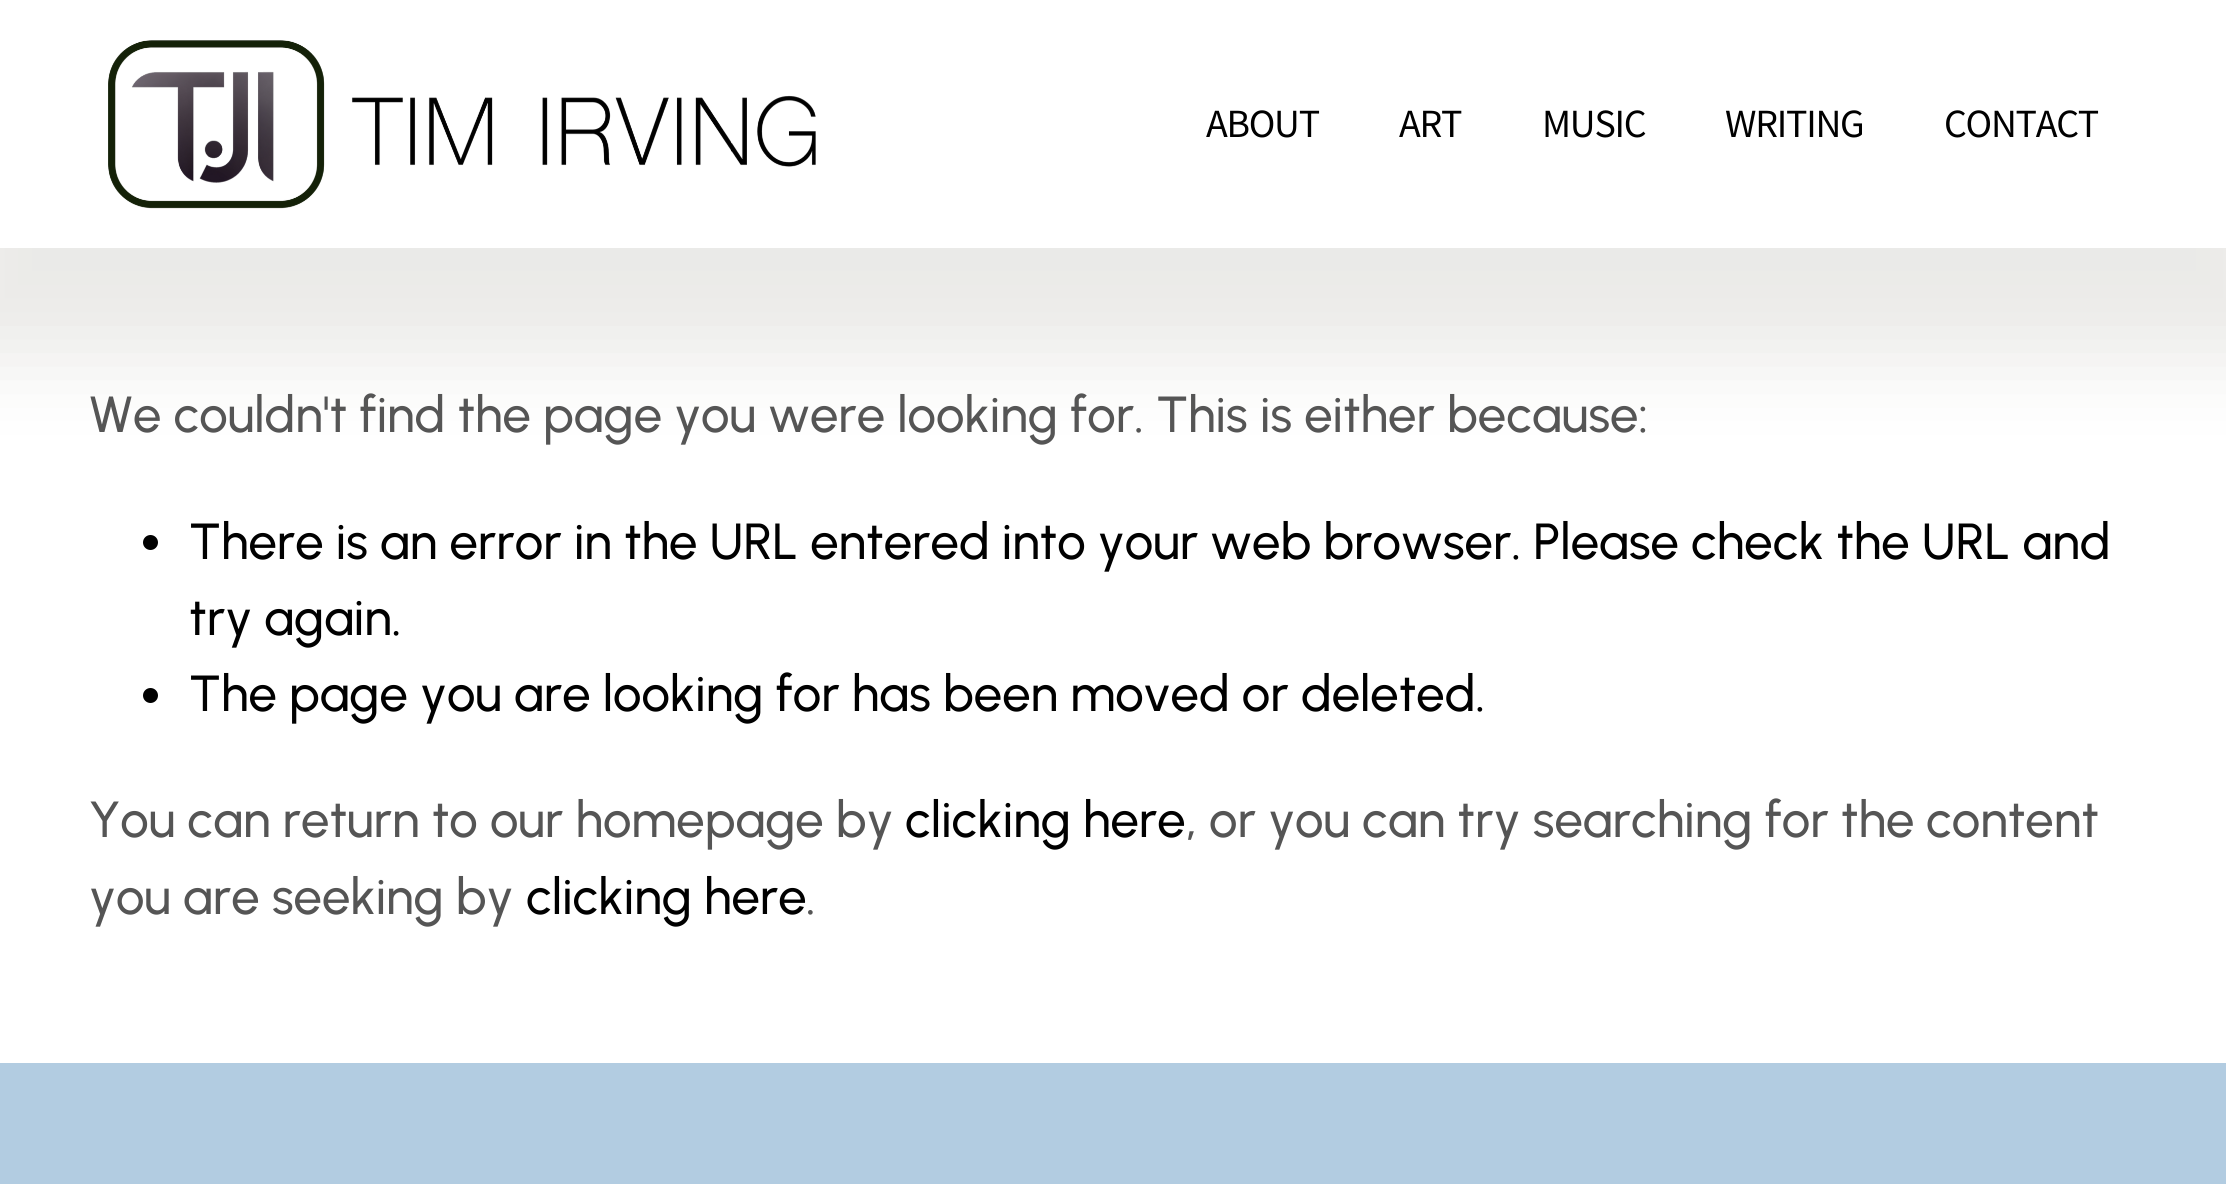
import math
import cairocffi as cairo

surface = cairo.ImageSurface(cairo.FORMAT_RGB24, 2226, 1184)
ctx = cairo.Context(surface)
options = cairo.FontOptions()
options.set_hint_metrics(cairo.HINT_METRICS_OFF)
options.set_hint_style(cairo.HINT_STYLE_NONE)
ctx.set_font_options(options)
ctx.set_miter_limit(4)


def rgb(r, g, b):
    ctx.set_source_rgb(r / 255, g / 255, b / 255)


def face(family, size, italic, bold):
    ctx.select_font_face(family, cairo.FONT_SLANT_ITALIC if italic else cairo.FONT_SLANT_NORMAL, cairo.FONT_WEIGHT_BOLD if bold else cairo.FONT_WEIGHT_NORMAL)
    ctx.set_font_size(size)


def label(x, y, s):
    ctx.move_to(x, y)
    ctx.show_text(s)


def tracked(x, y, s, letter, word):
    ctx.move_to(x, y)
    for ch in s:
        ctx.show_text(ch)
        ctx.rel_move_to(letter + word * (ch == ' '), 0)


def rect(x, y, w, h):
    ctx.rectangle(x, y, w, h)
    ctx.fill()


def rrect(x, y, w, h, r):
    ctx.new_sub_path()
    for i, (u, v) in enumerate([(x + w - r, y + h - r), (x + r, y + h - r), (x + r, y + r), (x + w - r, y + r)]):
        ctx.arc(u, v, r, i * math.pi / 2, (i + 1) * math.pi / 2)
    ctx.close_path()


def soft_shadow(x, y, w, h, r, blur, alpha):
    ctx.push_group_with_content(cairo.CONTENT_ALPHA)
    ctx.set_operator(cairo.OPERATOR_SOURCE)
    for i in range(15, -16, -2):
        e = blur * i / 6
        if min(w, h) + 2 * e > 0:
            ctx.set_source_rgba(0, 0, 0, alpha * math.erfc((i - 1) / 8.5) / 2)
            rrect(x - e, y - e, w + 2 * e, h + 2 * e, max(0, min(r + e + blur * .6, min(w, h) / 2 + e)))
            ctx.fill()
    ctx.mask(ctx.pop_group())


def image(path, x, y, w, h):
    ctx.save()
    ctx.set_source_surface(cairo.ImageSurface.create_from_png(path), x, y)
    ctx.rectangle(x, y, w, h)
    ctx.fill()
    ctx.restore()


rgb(255, 255, 255)
ctx.paint()
rgb(117, 114, 99)
soft_shadow(-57, -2, 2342, 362, 0, 41, 0.15)
rgb(255, 255, 255)
rect(0, 0, 2226, 248)
image('image0.png', 108, 40, 708, 169)
face('Source Sans Pro', 40, 0, 0)
rgb(0, 0, 0)
tracked(1206, 137, 'ABOUT', -1.25, 0)
tracked(1399, 137, 'ART', -1.25, 0)
tracked(1542, 137, 'MUSIC', -1.25, 0)
tracked(1725, 137, 'WRITING', -1.25, 0)
tracked(1944, 137, 'CONTACT', -1.25, 0)
face('Urbanist Medium', 50.7, 0, 0)
rgb(85, 85, 85)
label(89, 432, 'We couldn\'t find the page you were looking for. This is either because:')
rgb(0, 0, 0)
ctx.new_path()
ctx.arc(150.5, 542.5, 7.5, 0, 2 * math.pi)
ctx.fill()
label(189, 559, 'There is an error in the URL entered into your web browser. Please check the URL and')
label(189, 635, 'try again.')
ctx.new_path()
ctx.arc(150.5, 695.5, 7.5, 0, 2 * math.pi)
ctx.fill()
label(189, 711, 'The page you are looking for has been moved or deleted.')
rgb(85, 85, 85)
label(89, 837, 'You can return to our homepage by')
rgb(0, 0, 0)
label(905, 837, 'clicking here')
rgb(85, 85, 85)
label(1186, 837, ', or you can try searching for the')
label(1926, 837, 'content')
label(89, 914, 'you are seeking by')
rgb(0, 0, 0)
label(526, 914, 'clicking here')
rgb(85, 85, 85)
label(806, 914, '.')
rgb(178, 204, 225)
rect(0, 1063, 2226, 121)
surface.write_to_png('render.png')
